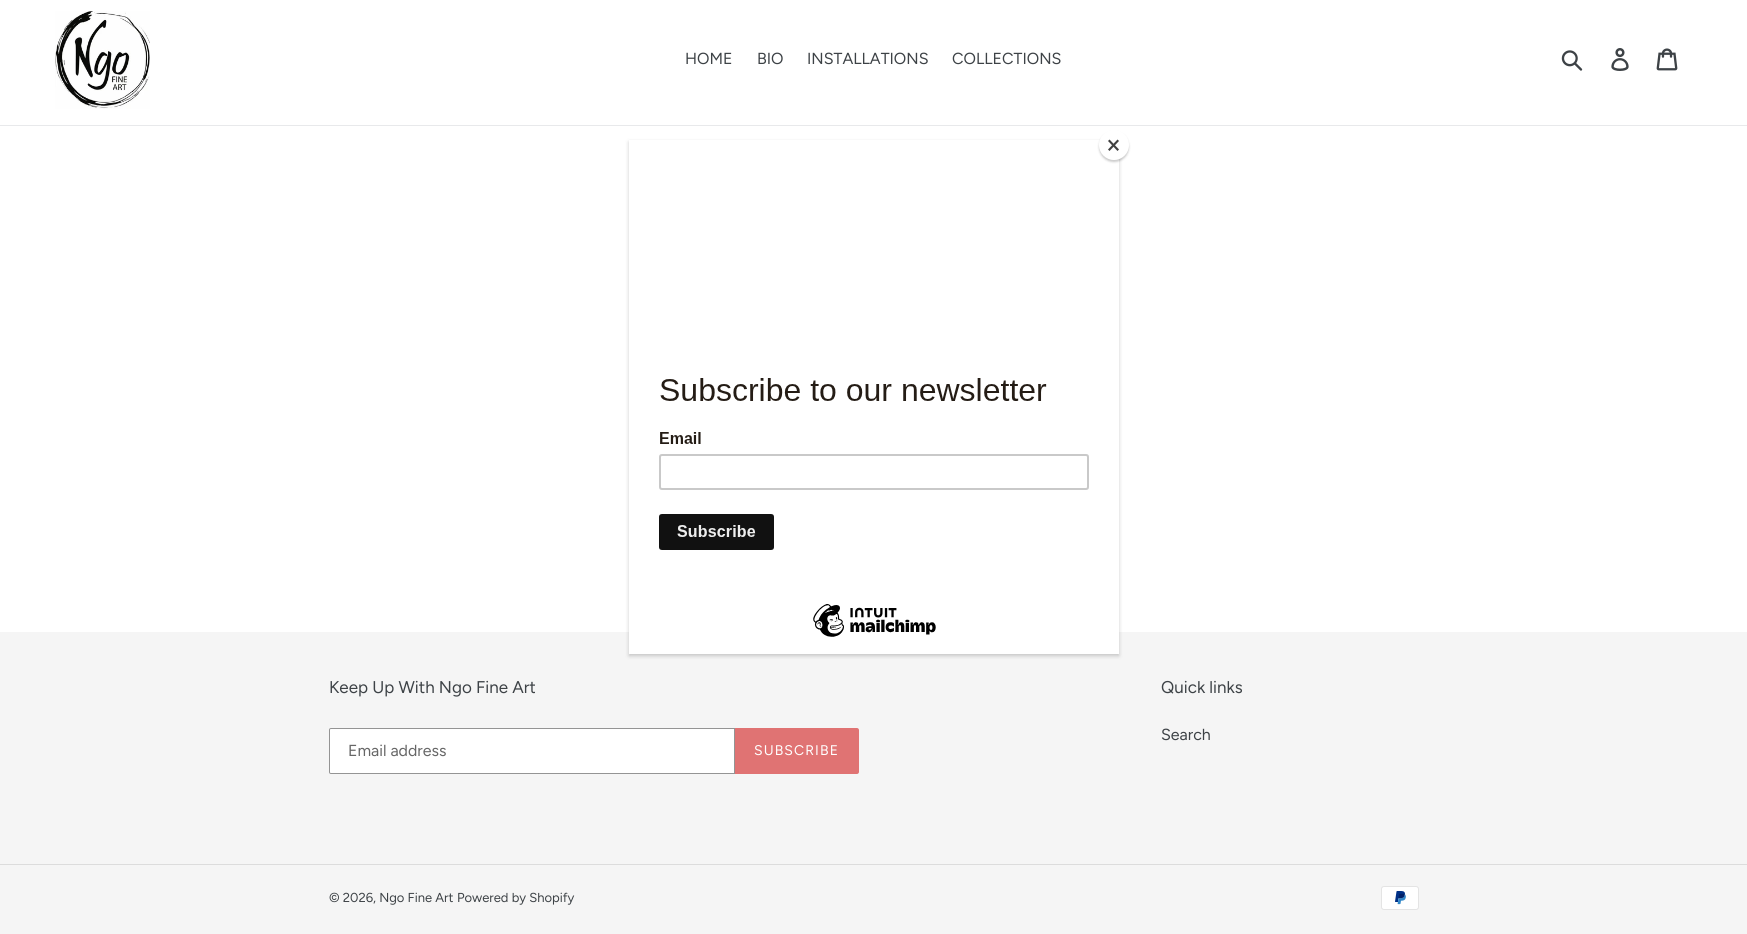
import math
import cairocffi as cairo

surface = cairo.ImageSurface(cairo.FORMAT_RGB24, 1747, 934)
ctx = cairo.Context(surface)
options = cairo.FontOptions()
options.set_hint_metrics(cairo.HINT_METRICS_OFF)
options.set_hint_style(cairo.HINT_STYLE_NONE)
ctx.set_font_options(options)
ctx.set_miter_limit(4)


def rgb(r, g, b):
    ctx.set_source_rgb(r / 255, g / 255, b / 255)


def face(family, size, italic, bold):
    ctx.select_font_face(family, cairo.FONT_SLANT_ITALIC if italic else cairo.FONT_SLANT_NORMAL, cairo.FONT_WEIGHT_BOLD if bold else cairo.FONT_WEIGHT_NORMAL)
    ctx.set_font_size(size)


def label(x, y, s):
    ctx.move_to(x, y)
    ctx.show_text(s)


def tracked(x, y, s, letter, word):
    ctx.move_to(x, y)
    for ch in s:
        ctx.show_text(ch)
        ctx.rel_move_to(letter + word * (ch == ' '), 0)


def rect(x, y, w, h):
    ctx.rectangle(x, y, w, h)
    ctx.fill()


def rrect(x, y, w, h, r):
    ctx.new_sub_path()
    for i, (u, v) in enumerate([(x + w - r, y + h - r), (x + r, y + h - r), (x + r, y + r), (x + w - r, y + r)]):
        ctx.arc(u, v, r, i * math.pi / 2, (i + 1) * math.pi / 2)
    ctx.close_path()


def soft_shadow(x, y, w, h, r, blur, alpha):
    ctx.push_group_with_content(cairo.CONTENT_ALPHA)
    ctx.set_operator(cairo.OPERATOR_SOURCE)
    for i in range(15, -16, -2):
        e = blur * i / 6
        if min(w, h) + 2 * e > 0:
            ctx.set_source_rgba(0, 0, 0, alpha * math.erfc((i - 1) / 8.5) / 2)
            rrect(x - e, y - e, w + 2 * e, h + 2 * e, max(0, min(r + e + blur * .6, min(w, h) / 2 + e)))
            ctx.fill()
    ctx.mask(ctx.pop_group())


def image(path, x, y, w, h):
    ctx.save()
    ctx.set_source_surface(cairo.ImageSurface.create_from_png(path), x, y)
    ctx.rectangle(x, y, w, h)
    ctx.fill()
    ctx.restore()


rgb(255, 255, 255)
ctx.paint()
rgb(232, 233, 235)
rect(0, 125, 1747, 1)
image('image0.png', 55, 11, 95, 98)
face('Figtree', 16, 0, 0)
rgb(61, 66, 70)
label(685, 64, 'HOME')
label(757, 64, 'BIO')
label(807, 64, 'INSTALLATIONS')
label(952, 64, 'COLLECTIONS')
image('image1.png', 1561, 50, 22, 21)
image('image2.png', 1611, 48, 18, 23)
image('image3.png', 1656, 48, 22, 23)
rgb(0, 0, 0)
soft_shadow(1099, 132, 30, 30, 15, 1, 0.2)
rgb(245, 245, 245)
rect(0, 632, 1747, 302)
ctx.save()
ctx.set_fill_rule(cairo.FILL_RULE_EVEN_ODD)
ctx.new_path()
ctx.move_to(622, 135)
ctx.line_to(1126, 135)
ctx.line_to(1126, 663)
ctx.line_to(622, 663)
ctx.close_path()
ctx.move_to(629, 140)
ctx.line_to(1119, 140)
ctx.line_to(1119, 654)
ctx.line_to(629, 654)
ctx.close_path()
ctx.clip()
rgb(0, 0, 0)
soft_shadow(629, 142, 490, 514, 0, 2, 0.2)
ctx.restore()
rgb(255, 255, 255)
ctx.arc(1114, 145, 15, 0, 2 * math.pi)
ctx.fill()
rgb(65, 65, 65)
ctx.new_path()
ctx.move_to(1117.5, 139.5)
ctx.line_to(1119, 141)
ctx.line_to(1109.5, 151)
ctx.line_to(1108, 149.5)
ctx.close_path()
ctx.fill()
ctx.new_path()
ctx.move_to(1108, 141)
ctx.line_to(1109.5, 139.5)
ctx.line_to(1119, 149.5)
ctx.line_to(1117.5, 151)
ctx.close_path()
ctx.fill()
image('image4.png', 629, 314, 490, 340)
face('Figtree', 17, 0, 0)
rgb(61, 66, 70)
label(329, 693, 'Keep Up With Ngo Fine Art')
rgb(255, 255, 255)
ctx.new_path()
ctx.move_to(331, 728.5)
ctx.line_to(734.5, 728.5)
ctx.line_to(734.5, 773.5)
ctx.line_to(331, 773.5)
ctx.curve_to(330, 773.5, 329.5, 773, 329.5, 772)
ctx.line_to(329.5, 730)
ctx.curve_to(329.5, 729, 330, 728.5, 331, 728.5)
ctx.close_path()
ctx.fill_preserve()
rgb(148, 148, 148)
ctx.set_line_width(1)
ctx.stroke()
face('Figtree', 16, 0, 0)
rgb(102, 102, 102)
label(348, 756, 'Email address')
rgb(224, 115, 115)
ctx.new_path()
ctx.move_to(735, 728)
ctx.line_to(857, 728)
ctx.curve_to(858, 728, 859, 729, 859, 730)
ctx.line_to(859, 772)
ctx.curve_to(859, 773, 858, 774, 857, 774)
ctx.line_to(735, 774)
ctx.close_path()
ctx.fill()
face('Figtree', 14, 0, 0)
rgb(255, 255, 255)
tracked(754, 755, 'SUBSCRIBE', 1.1, 0)
face('Figtree', 17, 0, 0)
rgb(61, 66, 70)
label(1161, 693, 'Quick links')
face('Figtree', 16, 0, 0)
label(1161, 740, 'Search')
rgb(220, 220, 220)
rect(0, 864, 1747, 1)
face('Figtree', 13, 0, 0)
rgb(61, 66, 70)
label(329, 902, '© 2026, Ngo Fine Art')
label(457, 902, 'Powered by Shopify')
image('image5.png', 1381, 886, 38, 24)
surface.write_to_png('render.png')
